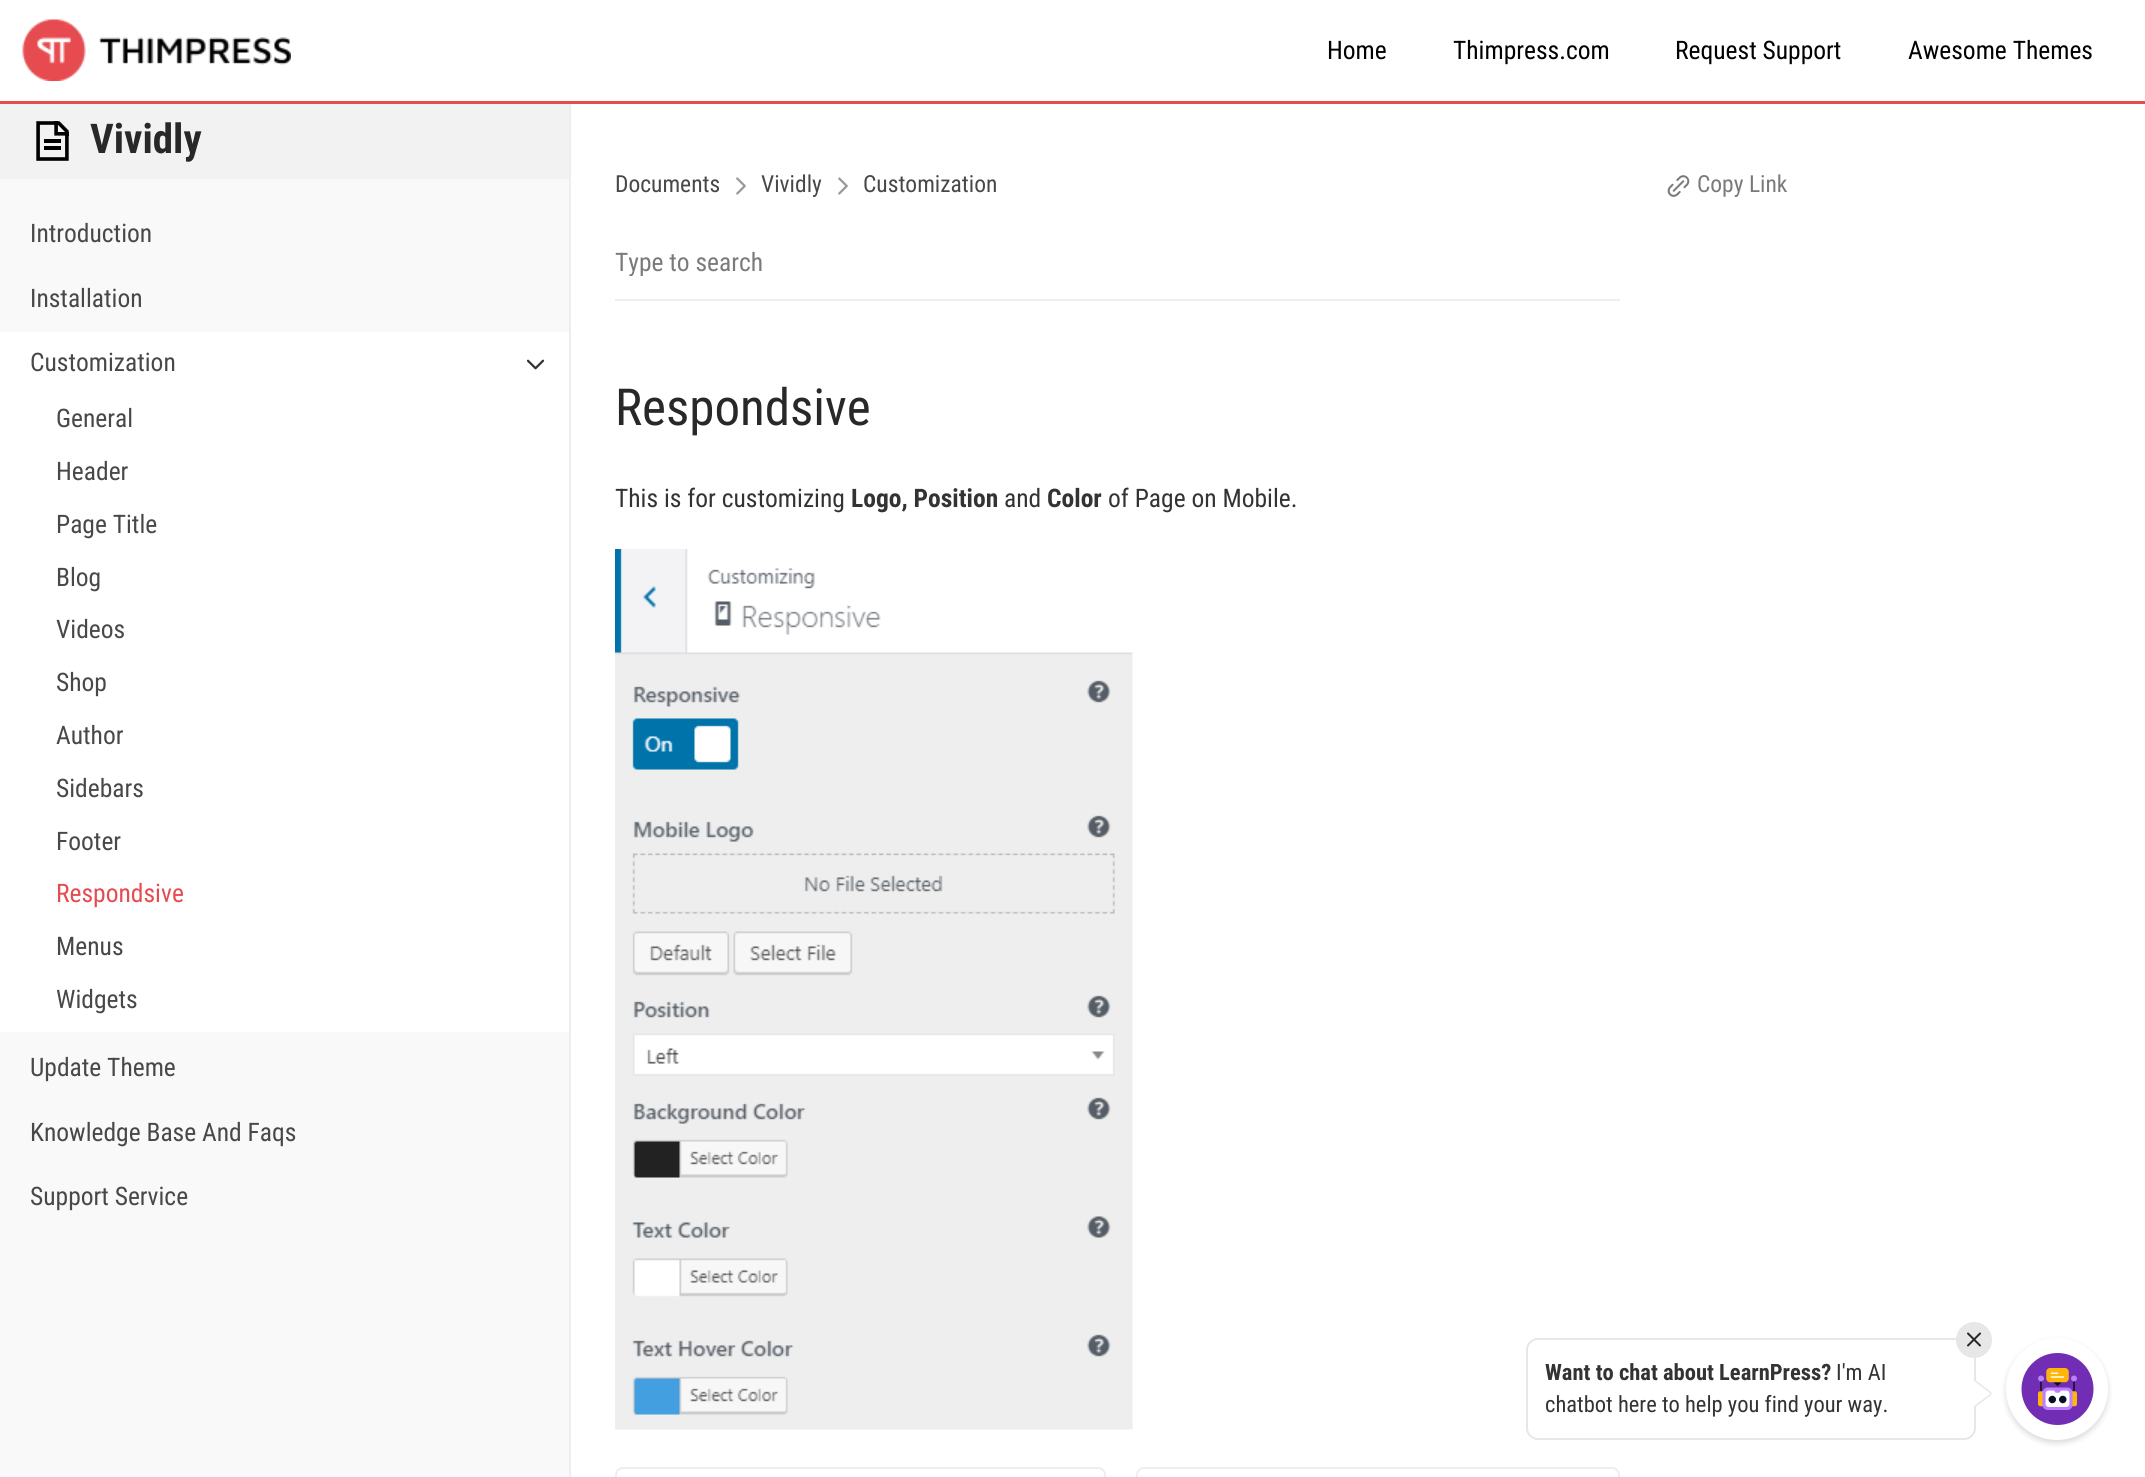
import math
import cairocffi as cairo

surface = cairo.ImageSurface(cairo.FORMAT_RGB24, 2145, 1477)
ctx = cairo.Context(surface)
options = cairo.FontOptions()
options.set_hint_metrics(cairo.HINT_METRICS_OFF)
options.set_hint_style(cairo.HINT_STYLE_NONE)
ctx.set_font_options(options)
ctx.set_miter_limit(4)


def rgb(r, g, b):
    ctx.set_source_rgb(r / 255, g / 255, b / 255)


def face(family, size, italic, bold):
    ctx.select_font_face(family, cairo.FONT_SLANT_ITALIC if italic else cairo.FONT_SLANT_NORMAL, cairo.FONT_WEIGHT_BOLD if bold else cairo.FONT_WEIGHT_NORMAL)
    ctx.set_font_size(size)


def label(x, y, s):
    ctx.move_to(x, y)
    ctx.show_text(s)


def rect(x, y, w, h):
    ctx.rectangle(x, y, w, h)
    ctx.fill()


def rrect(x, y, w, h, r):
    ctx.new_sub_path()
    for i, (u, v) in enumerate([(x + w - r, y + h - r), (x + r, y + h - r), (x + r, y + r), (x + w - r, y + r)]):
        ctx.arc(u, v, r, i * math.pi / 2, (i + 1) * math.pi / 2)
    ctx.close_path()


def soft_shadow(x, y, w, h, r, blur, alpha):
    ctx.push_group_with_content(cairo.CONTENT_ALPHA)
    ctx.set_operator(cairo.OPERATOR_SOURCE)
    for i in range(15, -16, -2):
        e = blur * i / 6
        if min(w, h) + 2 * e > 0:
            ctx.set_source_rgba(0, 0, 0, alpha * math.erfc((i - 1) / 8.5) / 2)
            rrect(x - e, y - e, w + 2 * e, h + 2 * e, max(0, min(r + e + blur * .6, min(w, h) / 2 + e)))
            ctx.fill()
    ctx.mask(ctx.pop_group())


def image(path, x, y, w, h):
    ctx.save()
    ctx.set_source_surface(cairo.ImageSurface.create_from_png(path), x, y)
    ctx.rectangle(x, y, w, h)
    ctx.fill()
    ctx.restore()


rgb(255, 255, 255)
ctx.paint()
rgb(230, 75, 80)
rect(0, 101, 2145, 3)
image('image0.png', 22, 19, 269, 62)
face('Roboto Condensed', 25.5, 0, 0)
rgb(0, 0, 0)
label(1327, 59, 'Home')
label(1453, 59, 'Thimpress.com')
label(1675, 59, 'Request Support')
label(1908, 59, 'Awesome Themes')
rgb(249, 249, 249)
rect(0, 179, 569, 1298)
rgb(238, 238, 238)
rect(569, 104, 2, 1373)
rgb(242, 242, 242)
rect(0, 104, 569, 75)
image('image1.png', 36, 121, 33, 40)
face('Roboto Condensed', 41, 0, 1)
rgb(40, 40, 40)
label(90, 153, 'Vividly')
face('Roboto Condensed', 25.5, 0, 0)
rgb(71, 72, 74)
label(30, 242, 'Introduction')
label(30, 307, 'Installation')
rgb(255, 255, 255)
rect(0, 332, 569, 700)
rgb(71, 72, 74)
label(30, 371, 'Customization')
image('image2.png', 526, 359, 19, 11)
label(56, 427, 'General')
label(56, 480, 'Header')
label(56, 533, 'Page Title')
label(56, 586, 'Blog')
label(56, 638, 'Videos')
label(56, 691, 'Shop')
label(56, 744, 'Author')
label(56, 797, 'Sidebars')
label(56, 850, 'Footer')
rgb(230, 75, 80)
label(56, 902, 'Respondsive')
rgb(71, 72, 74)
label(56, 955, 'Menus')
label(56, 1008, 'Widgets')
label(30, 1076, 'Update Theme')
label(30, 1141, 'Knowledge Base And Faqs')
label(30, 1205, 'Support Service')
face('Roboto Condensed', 23.5, 0, 0)
label(615, 192, 'Documents')
image('image3.png', 736, 177, 10, 18)
label(761, 192, 'Vividly')
image('image3.png', 838, 177, 10, 18)
label(863, 192, 'Customization')
rgb(238, 238, 238)
rect(615, 299, 1005, 2)
ctx.save()
ctx.rectangle(615, 246, 999, 30)
ctx.clip()
face('Roboto Condensed', 25.5, 0, 0)
rgb(122, 122, 122)
label(615, 271, 'Type to search')
ctx.restore()
face('Roboto Condensed', 51, 0, 0)
rgb(40, 40, 40)
label(615, 425, 'Respondsive')
face('Roboto Condensed', 25.5, 0, 0)
rgb(51, 51, 51)
label(615, 507, 'This is for customizing')
face('Roboto Condensed', 25.5, 0, 1)
label(851, 507, 'Logo, Position')
face('Roboto Condensed', 25.5, 0, 0)
label(1004, 507, 'and')
face('Roboto Condensed', 25.5, 0, 1)
label(1047, 507, 'Color')
face('Roboto Condensed', 25.5, 0, 0)
label(1108, 507, 'of Page on Mobile.')
image('image4.png', 615, 549, 518, 881)
rrect(616, 1468, 489, 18, 7)
rgb(238, 238, 238)
ctx.stroke()
rrect(1137, 1468, 482, 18, 7)
ctx.stroke()
image('image5.png', 1667, 175, 23, 22)
face('Roboto Condensed', 23.5, 0, 0)
rgb(122, 122, 122)
label(1697, 192, 'Copy Link')
rrect(1527, 1339, 448, 100, 11)
rgb(231, 231, 231)
ctx.stroke()
ctx.arc(1974, 1340, 18, 0, 2 * math.pi)
ctx.fill()
image('image6.png', 1967, 1332, 14, 15)
face('Roboto Condensed', 22.5, 0, 1)
rgb(51, 51, 51)
label(1545, 1380, 'Want to chat about LearnPress?')
face('Roboto Condensed', 22.5, 0, 0)
label(1836, 1380, 'I\'m AI')
label(1545, 1412, 'chatbot here to help you find your way.')
rgb(255, 255, 255)
ctx.new_path()
ctx.move_to(1991.5, 1393.5)
ctx.line_to(1973.5, 1380)
ctx.line_to(1973.5, 1407)
ctx.close_path()
ctx.fill()
ctx.new_path()
ctx.move_to(1974, 1380)
ctx.line_to(1990.5, 1392.5)
ctx.curve_to(1991, 1393, 1991, 1394, 1990.5, 1394.5)
ctx.line_to(1974, 1407)
rgb(231, 231, 231)
ctx.set_line_width(1.5)
ctx.stroke()
rgb(0, 0, 0)
soft_shadow(2006, 1341, 102, 102, 51, 3, 0.15)
rgb(255, 255, 255)
ctx.arc(2057, 1389, 51, 0, 2 * math.pi)
ctx.fill()
image('image7.png', 2021, 1353, 73, 72)
surface.write_to_png('render.png')
